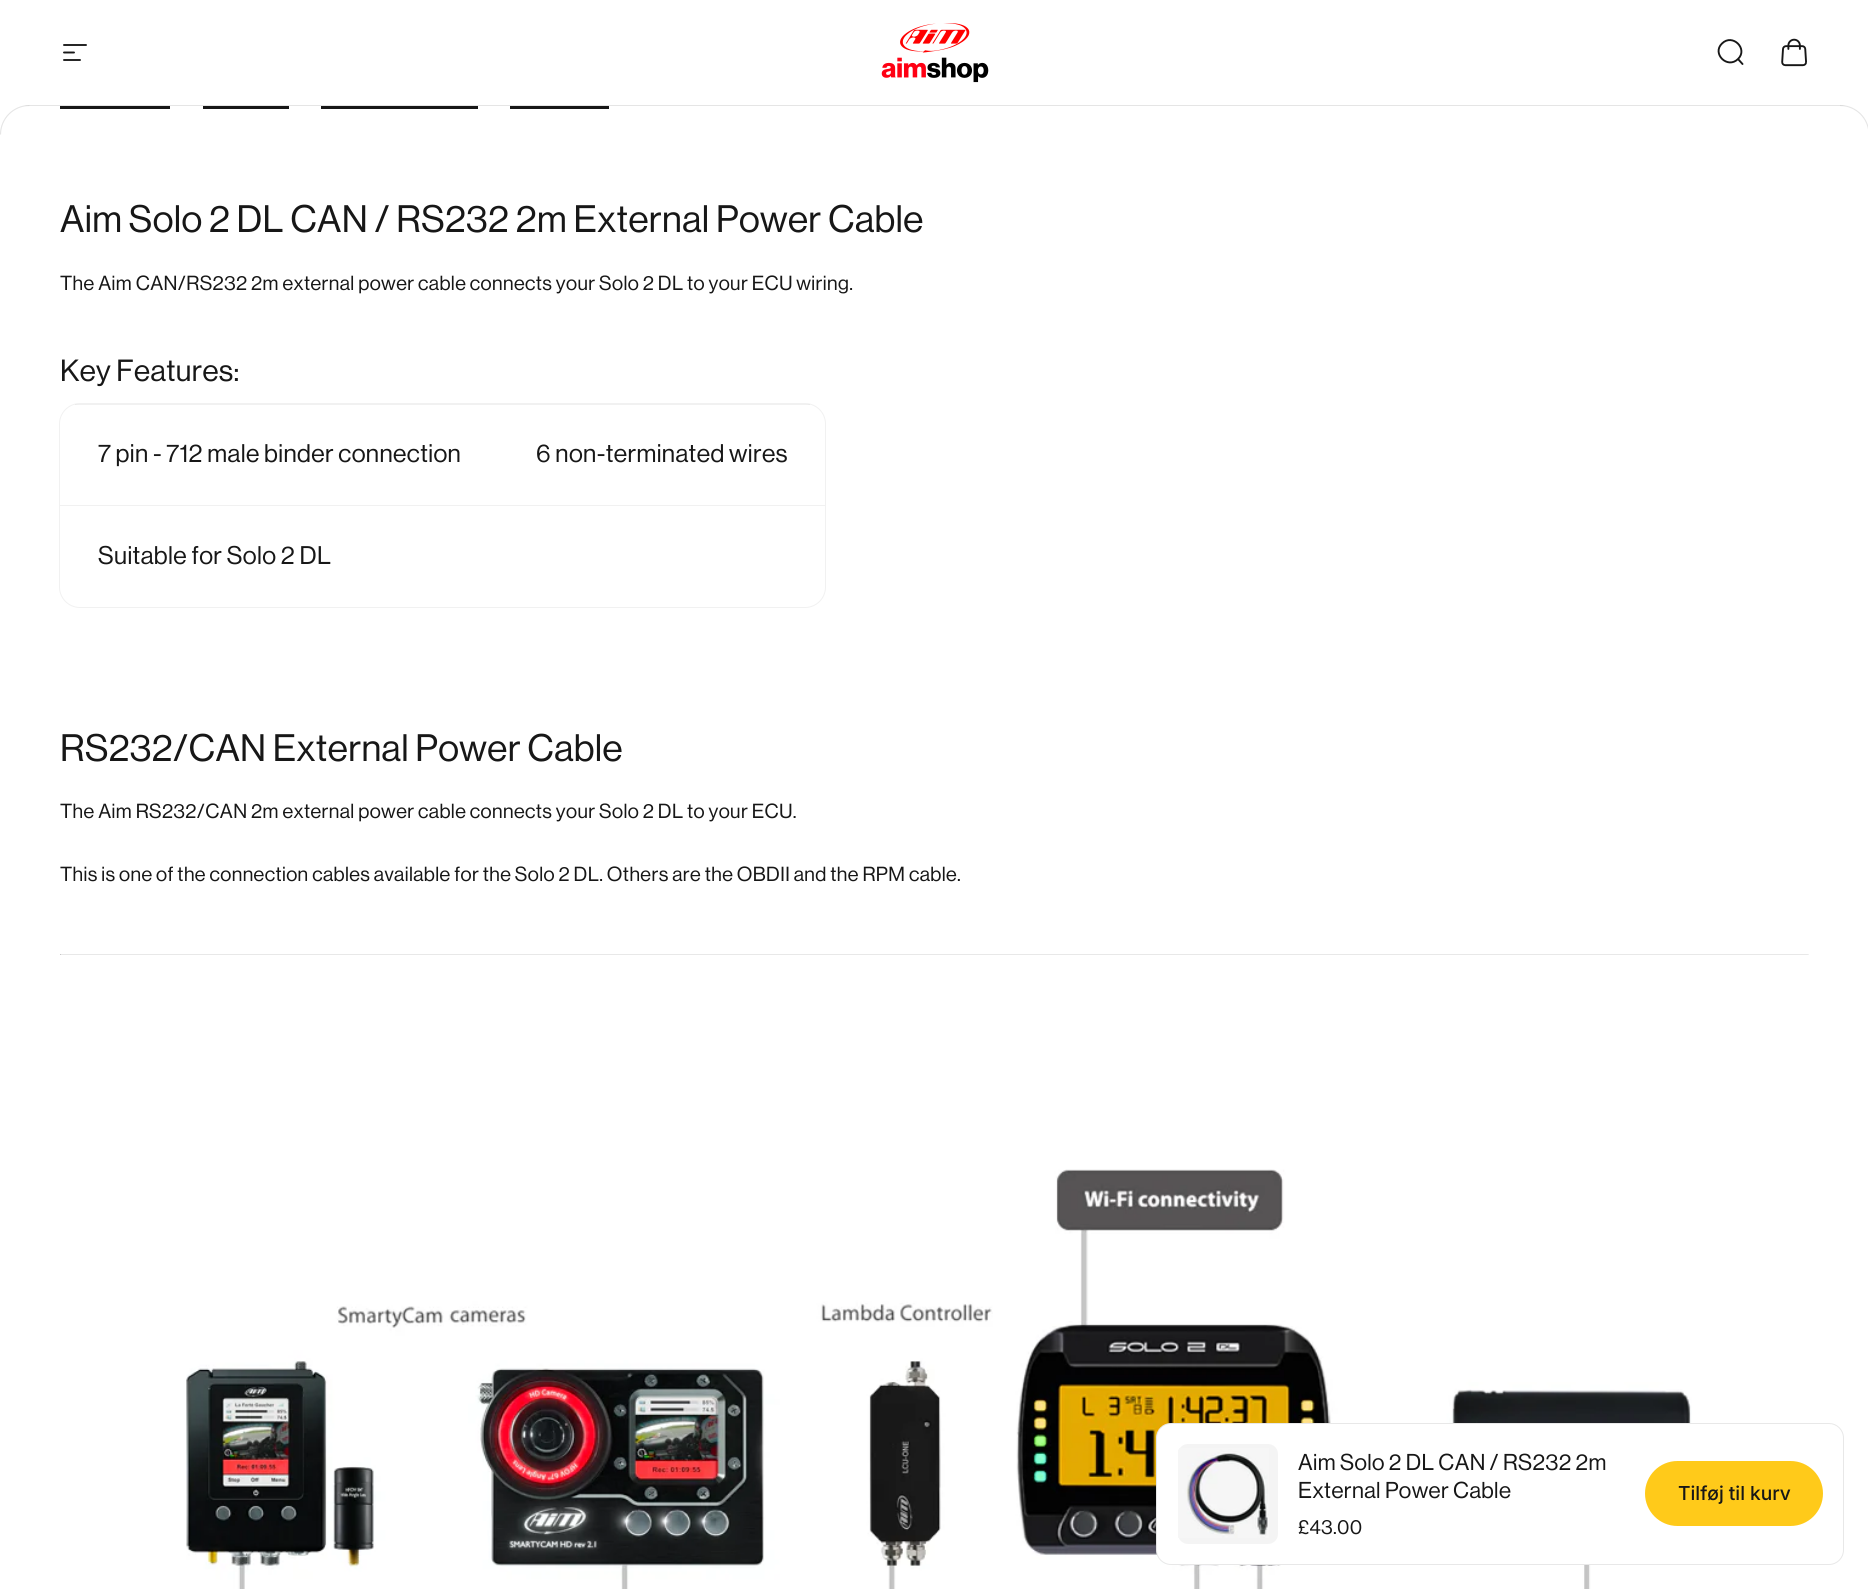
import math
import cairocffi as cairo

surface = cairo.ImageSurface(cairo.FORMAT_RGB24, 1868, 1589)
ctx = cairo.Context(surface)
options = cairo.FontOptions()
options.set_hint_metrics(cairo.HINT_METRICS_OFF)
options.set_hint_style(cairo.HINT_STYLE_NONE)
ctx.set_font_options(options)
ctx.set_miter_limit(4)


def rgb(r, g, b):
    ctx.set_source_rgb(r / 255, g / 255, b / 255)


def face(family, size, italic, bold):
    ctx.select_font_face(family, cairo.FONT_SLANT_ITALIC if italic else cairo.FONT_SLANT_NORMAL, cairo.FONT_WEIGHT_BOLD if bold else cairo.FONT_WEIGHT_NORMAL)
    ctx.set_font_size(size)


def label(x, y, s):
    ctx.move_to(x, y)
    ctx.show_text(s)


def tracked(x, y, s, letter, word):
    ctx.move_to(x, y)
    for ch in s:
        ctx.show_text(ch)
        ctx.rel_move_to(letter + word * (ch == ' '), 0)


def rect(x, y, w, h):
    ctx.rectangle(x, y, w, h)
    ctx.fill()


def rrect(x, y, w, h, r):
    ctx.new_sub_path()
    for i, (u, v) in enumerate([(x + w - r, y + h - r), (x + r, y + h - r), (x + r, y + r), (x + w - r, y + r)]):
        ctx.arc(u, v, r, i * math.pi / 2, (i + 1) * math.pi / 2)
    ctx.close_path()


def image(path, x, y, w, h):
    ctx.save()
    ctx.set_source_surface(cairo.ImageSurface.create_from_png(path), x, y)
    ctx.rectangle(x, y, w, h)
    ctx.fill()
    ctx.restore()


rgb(255, 255, 255)
ctx.paint()
ctx.new_path()
ctx.move_to(64, 45)
ctx.line_to(86, 45)
ctx.move_to(64, 52.5)
ctx.line_to(74, 52.5)
ctx.move_to(64, 60)
ctx.line_to(80, 60)
rgb(23, 23, 23)
ctx.set_line_width(1.9)
ctx.set_line_cap(cairo.LINE_CAP_ROUND)
ctx.stroke()
image('image0.png', 881, 23, 108, 60)
ctx.new_path()
ctx.move_to(1742.5, 64)
ctx.line_to(1738, 59)
ctx.move_to(1738, 59)
ctx.curve_to(1748.5, 49, 1732.5, 33, 1722, 43.5)
ctx.curve_to(1711.5, 53.5, 1727.5, 69.5, 1738, 59)
ctx.close_path()
ctx.stroke()
image('image1.png', 1781, 38, 26, 29)
rgb(229, 229, 229)
rect(24, 105, 1821, 1)
rgb(255, 255, 255)
ctx.set_fill_rule(cairo.FILL_RULE_EVEN_ODD)
ctx.new_path()
ctx.move_to(29.5, 105)
ctx.line_to(0, 105)
ctx.line_to(0, 134.5)
ctx.line_to(0.5, 134.5)
ctx.curve_to(0.5, 118.5, 13.5, 105.5, 29.5, 105.5)
ctx.close_path()
ctx.fill()
ctx.new_path()
ctx.move_to(0.5, 134.5)
ctx.curve_to(0.5, 118.5, 13.5, 105.5, 29.5, 105.5)
ctx.set_source_rgba(0.09, 0.09, 0.09, 0.11)
ctx.set_line_width(1.1)
ctx.set_line_cap(cairo.LINE_CAP_BUTT)
ctx.stroke()
rgb(255, 255, 255)
ctx.new_path()
ctx.move_to(1840, 105)
ctx.line_to(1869.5, 105)
ctx.line_to(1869.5, 134.5)
ctx.line_to(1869, 134.5)
ctx.curve_to(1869, 118.5, 1856, 105.5, 1840, 105.5)
ctx.close_path()
ctx.fill()
ctx.new_path()
ctx.move_to(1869, 134.5)
ctx.curve_to(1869, 118.5, 1856, 105.5, 1840, 105.5)
ctx.set_source_rgba(0.09, 0.09, 0.09, 0.11)
ctx.stroke()
rgb(23, 23, 23)
rect(60, 106, 110, 3)
rect(203, 106, 86, 3)
rect(321, 106, 157, 3)
rect(510, 106, 99, 3)
face('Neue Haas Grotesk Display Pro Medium', 37.5, 0, 0)
tracked(60, 232, 'Aim Solo 2 DL CAN / RS232 2m External Power Cable', 0.4, 0)
face('Neue Haas Grotesk Display Pro Medium', 20, 0, 0)
tracked(60, 290, 'The Aim CAN/RS232 2m external power cable connects your Solo 2 DL to your ECU wiring.', 0.4, 0)
face('Neue Haas Grotesk Display Pro Medium', 30, 0, 0)
tracked(60, 381, 'Key Features:', 0.4, 0)
rrect(59.5, 403.5, 766, 204, 20.5)
rgb(241, 241, 241)
ctx.set_line_width(1)
ctx.stroke()
ctx.set_source_rgba(0.09, 0.09, 0.09, 0.06)
rect(75, 404, 735, 1)
face('Neue Haas Grotesk Display Pro Medium', 25, 0, 0)
rgb(23, 23, 23)
tracked(98, 462, '7 pin - 712 male binder connection', 0.4, 0)
tracked(536, 462, '6 non-terminated wires', 0.4, 0)
rgb(241, 241, 241)
rect(60, 505, 765, 1)
rgb(23, 23, 23)
tracked(98, 564, 'Suitable for Solo 2 DL', 0.4, 0)
face('Neue Haas Grotesk Display Pro Medium', 37.5, 0, 0)
tracked(60, 761, 'RS232/CAN External Power Cable', 0.4, 0)
face('Neue Haas Grotesk Display Pro Medium', 20, 0, 0)
tracked(60, 818, 'The Aim RS232/CAN 2m external power cable connects your Solo 2 DL to your ECU.', 0.4, 0)
tracked(60, 881, 'This is one of the connection cables available for the Solo 2 DL. Others are the OBDII and the RPM cable.', 0.4, 0)
rgb(232, 232, 232)
ctx.set_fill_rule(cairo.FILL_RULE_WINDING)
ctx.new_path()
ctx.move_to(60, 954)
ctx.line_to(1809, 954)
ctx.line_to(1808, 955)
ctx.line_to(61, 955)
ctx.close_path()
ctx.fill()
rgb(238, 238, 238)
ctx.new_path()
ctx.move_to(1809, 954)
ctx.line_to(1809, 955)
ctx.line_to(1807.5, 955)
ctx.close_path()
ctx.fill()
rgb(159, 159, 159)
ctx.new_path()
ctx.move_to(60, 955)
ctx.line_to(60, 954)
ctx.line_to(61, 955)
ctx.close_path()
ctx.fill()
image('image2.png', 186, 1169, 1506, 420)
rgb(255, 255, 255)
rrect(1156, 1423, 688, 142, 15)
ctx.fill()
rrect(1156.5, 1423.5, 687, 141, 14.5)
ctx.set_source_rgba(0.09, 0.09, 0.09, 0.1)
ctx.stroke()
rgb(244, 244, 244)
rrect(1178, 1444, 100, 100, 10)
ctx.fill()
image('image3.png', 1178, 1448, 91, 90)
face('Neue Haas Grotesk Display Pro Medium', 22.5, 0, 0)
rgb(23, 23, 23)
tracked(1298, 1470, 'Aim Solo 2 DL CAN / RS232 2m', 0.4, 0)
tracked(1298, 1498, 'External Power Cable', 0.4, 0)
face('Neue Haas Grotesk Display Pro Medium', 20, 0, 0)
tracked(1298, 1534, '£43.00', 0.4, 0)
rgb(255, 202, 26)
rrect(1646.5, 1462.5, 175, 62, 31)
ctx.fill_preserve()
ctx.set_line_width(3)
ctx.stroke()
face('Inter Medium', 19.25, 0, 0)
rgb(23, 23, 23)
label(1678, 1500, 'Tilføj til kurv')
surface.write_to_png('render.png')
